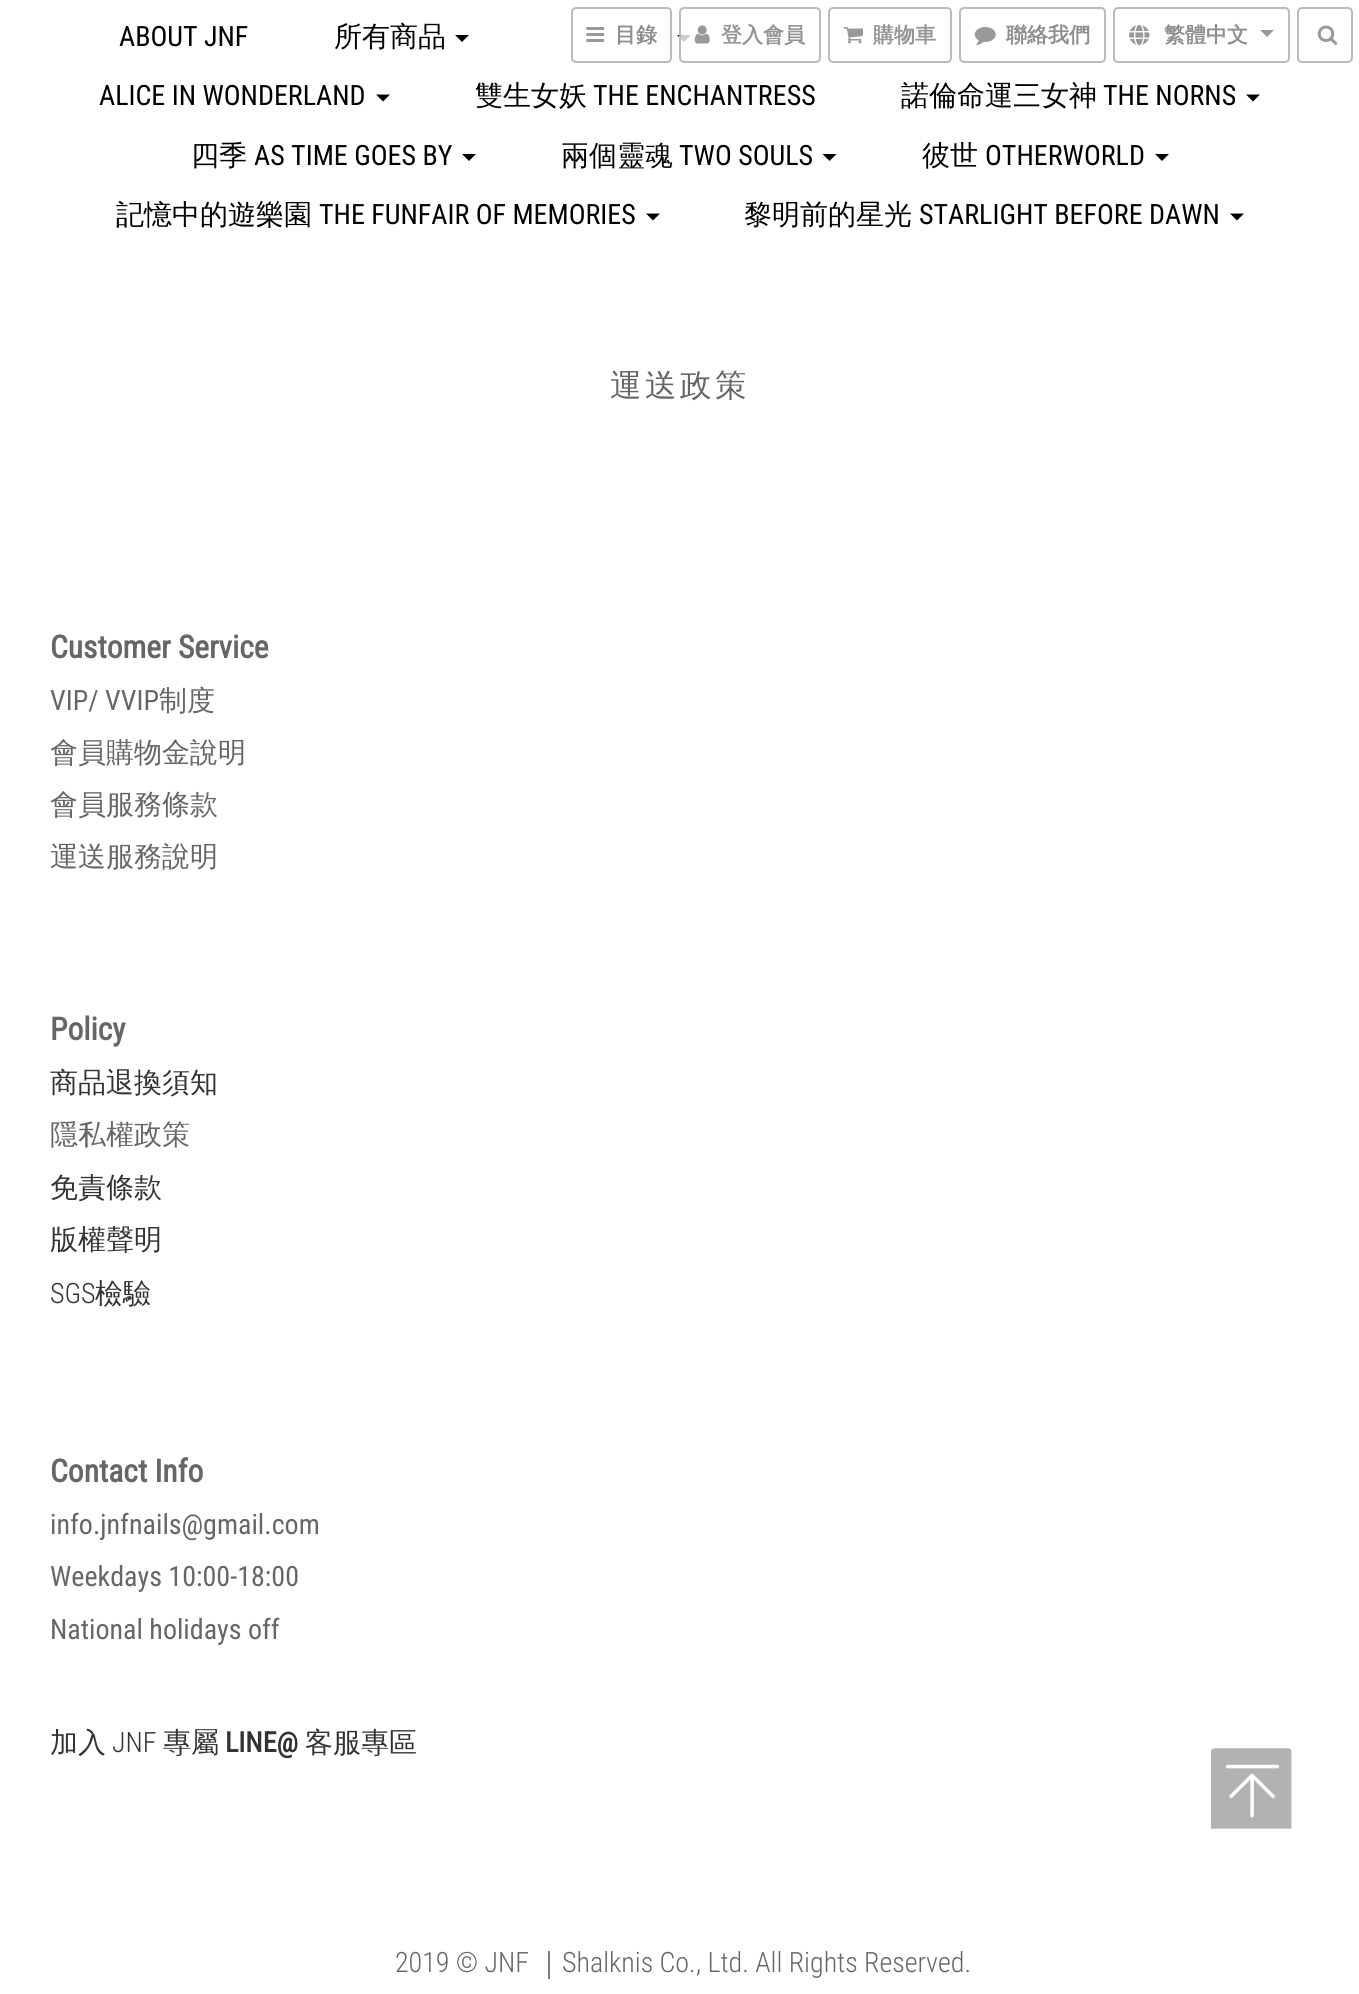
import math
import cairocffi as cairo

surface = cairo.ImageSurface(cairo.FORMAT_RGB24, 1359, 1994)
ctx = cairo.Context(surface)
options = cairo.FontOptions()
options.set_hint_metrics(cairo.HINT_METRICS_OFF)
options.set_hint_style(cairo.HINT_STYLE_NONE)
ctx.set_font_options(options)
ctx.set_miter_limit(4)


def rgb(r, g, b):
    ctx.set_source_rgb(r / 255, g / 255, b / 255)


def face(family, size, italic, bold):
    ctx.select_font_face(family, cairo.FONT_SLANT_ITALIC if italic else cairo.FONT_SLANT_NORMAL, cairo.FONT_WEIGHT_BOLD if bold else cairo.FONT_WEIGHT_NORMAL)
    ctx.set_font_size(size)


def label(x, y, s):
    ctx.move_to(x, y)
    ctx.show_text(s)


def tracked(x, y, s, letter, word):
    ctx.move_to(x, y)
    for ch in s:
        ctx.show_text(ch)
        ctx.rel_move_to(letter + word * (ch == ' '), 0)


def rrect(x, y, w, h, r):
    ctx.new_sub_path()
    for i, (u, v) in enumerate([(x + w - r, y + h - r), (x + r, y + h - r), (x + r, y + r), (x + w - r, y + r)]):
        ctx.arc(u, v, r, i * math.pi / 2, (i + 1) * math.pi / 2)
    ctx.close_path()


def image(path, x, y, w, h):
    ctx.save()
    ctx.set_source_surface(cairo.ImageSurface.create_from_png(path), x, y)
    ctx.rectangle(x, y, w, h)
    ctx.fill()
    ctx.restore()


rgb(255, 255, 255)
ctx.paint()
face('Roboto Condensed', 28, 0, 0)
rgb(0, 0, 0)
label(119, 46, 'ABOUT JNF')
face('WenQuanYi Zen Hei Medium', 28, 0, 0)
label(334, 46, '所有商品')
ctx.new_path()
ctx.move_to(455, 35)
ctx.line_to(469, 35)
ctx.line_to(462, 42)
ctx.close_path()
ctx.fill()
ctx.new_path()
ctx.move_to(677, 35)
ctx.line_to(691, 35)
ctx.line_to(684, 42)
ctx.close_path()
ctx.fill()
ctx.new_path()
ctx.move_to(898, 35)
ctx.line_to(912, 35)
ctx.line_to(905, 42)
ctx.close_path()
ctx.fill()
face('Roboto Condensed', 28, 0, 0)
label(99, 105, 'ALICE IN WONDERLAND')
ctx.new_path()
ctx.move_to(376, 94.5)
ctx.line_to(390, 94.5)
ctx.line_to(383, 101.5)
ctx.close_path()
ctx.fill()
face('WenQuanYi Zen Hei Medium', 28, 0, 0)
label(475, 105, '雙生女妖')
face('Roboto Condensed', 28, 0, 0)
label(593, 105, 'THE ENCHANTRESS')
face('WenQuanYi Zen Hei Medium', 28, 0, 0)
label(901, 105, '諾倫命運三女神')
face('Roboto Condensed', 28, 0, 0)
label(1103, 105, 'THE NORNS')
ctx.new_path()
ctx.move_to(1246, 94.5)
ctx.line_to(1260, 94.5)
ctx.line_to(1253, 101.5)
ctx.close_path()
ctx.fill()
face('WenQuanYi Zen Hei Medium', 28, 0, 0)
label(191, 165, '四季')
face('Roboto Condensed', 28, 0, 0)
label(254, 165, 'AS TIME GOES BY')
ctx.new_path()
ctx.move_to(462, 154)
ctx.line_to(476, 154)
ctx.line_to(469, 161)
ctx.close_path()
ctx.fill()
face('WenQuanYi Zen Hei Medium', 28, 0, 0)
label(561, 165, '兩個靈魂')
face('Roboto Condensed', 28, 0, 0)
label(679, 165, 'TWO SOULS')
ctx.new_path()
ctx.move_to(822.5, 154)
ctx.line_to(836.5, 154)
ctx.line_to(829.5, 161)
ctx.close_path()
ctx.fill()
face('WenQuanYi Zen Hei Medium', 28, 0, 0)
label(922, 165, '彼世')
face('Roboto Condensed', 28, 0, 0)
label(985, 165, 'OTHERWORLD')
ctx.new_path()
ctx.move_to(1155, 154)
ctx.line_to(1169, 154)
ctx.line_to(1162, 161)
ctx.close_path()
ctx.fill()
face('WenQuanYi Zen Hei Medium', 28, 0, 0)
label(116, 224, '記憶中的遊樂園')
face('Roboto Condensed', 28, 0, 0)
label(319, 224, 'THE FUNFAIR OF MEMORIES')
ctx.new_path()
ctx.move_to(646, 213.5)
ctx.line_to(660, 213.5)
ctx.line_to(653, 220.5)
ctx.close_path()
ctx.fill()
face('WenQuanYi Zen Hei Medium', 28, 0, 0)
label(744, 224, '黎明前的星光')
face('Roboto Condensed', 28, 0, 0)
label(919, 224, 'STARLIGHT BEFORE DAWN')
ctx.new_path()
ctx.move_to(1230, 213.5)
ctx.line_to(1244, 213.5)
ctx.line_to(1237, 220.5)
ctx.close_path()
ctx.fill()
face('WenQuanYi Zen Hei Medium', 31.5, 0, 0)
rgb(102, 102, 102)
tracked(610, 396, '運送政策', 3.5, 0)
face('Roboto Condensed', 31.5, 0, 1)
label(50, 658, 'Customer Service')
face('Roboto Condensed', 28, 0, 0)
label(50, 710, 'VIP/ VVIP')
face('WenQuanYi Zen Hei Medium', 28, 0, 0)
label(159, 710, '制度')
label(50, 762, '會員購物金說明')
label(50, 814, '會員服務條款')
label(50, 866, '運送服務說明')
face('Roboto Condensed', 31.5, 0, 1)
label(50, 1040, 'Policy')
face('WenQuanYi Zen Hei Medium', 28, 0, 0)
rgb(51, 51, 51)
label(50, 1092, '商品退換須知')
rgb(102, 102, 102)
label(50, 1144, '隱私權政策')
rgb(51, 51, 51)
label(50, 1197, '免責條款')
label(50, 1249, '版權聲明')
face('Roboto Condensed Light', 28, 0, 0)
label(50, 1303, 'SGS')
face('WenQuanYi Zen Hei Medium', 28, 0, 0)
label(95, 1303, '檢驗')
face('Roboto Condensed', 31.5, 0, 1)
rgb(102, 102, 102)
label(50, 1482, 'Contact Info')
face('Roboto Condensed', 28, 0, 0)
label(50, 1534, 'info.jnfnails@gmail.com')
label(50, 1586, 'Weekdays 10:00-18:00')
label(50, 1639, 'National holidays off')
face('WenQuanYi Zen Hei Medium', 28, 0, 0)
rgb(51, 51, 51)
label(50, 1752, '加入')
face('Roboto Condensed Light', 28, 0, 0)
label(112, 1752, 'JNF')
face('WenQuanYi Zen Hei Medium', 28, 0, 0)
label(163, 1752, '專屬')
face('Roboto Condensed', 28, 0, 1)
label(225, 1752, 'LINE@')
face('WenQuanYi Zen Hei Medium', 28, 0, 0)
label(305, 1752, '客服專區')
face('Roboto Condensed Light', 28, 0, 0)
rgb(102, 102, 102)
label(395, 1972, '2019 © JNF')
face('WenQuanYi Zen Hei Medium', 28, 0, 0)
label(535, 1972, '｜')
face('Roboto Condensed Light', 28, 0, 0)
label(562, 1972, 'Shalknis Co., Ltd. All Rights Reserved.')
rrect(572, 8, 99, 54, 4)
ctx.set_source_rgba(0.667, 0.667, 0.667, 0.8)
ctx.stroke()
image('image0.png', 586, 27, 19, 15)
face('WenQuanYi Zen Hei', 21, 0, 1)
rgb(142, 142, 142)
label(615, 42, '目錄')
ctx.set_source_rgba(1, 1, 1, 0.8)
rrect(679, 7, 142, 56, 5)
ctx.fill()
rrect(680, 8, 140, 54, 4)
ctx.set_source_rgba(0.667, 0.667, 0.667, 0.8)
ctx.stroke()
image('image1.png', 694, 25, 16, 19)
rgb(149, 149, 149)
label(721, 42, '登入會員')
ctx.set_source_rgba(1, 1, 1, 0.8)
rrect(828, 7, 124, 56, 5)
ctx.fill()
rrect(829, 8, 122, 54, 4)
ctx.set_source_rgba(0.667, 0.667, 0.667, 0.8)
ctx.stroke()
image('image2.png', 843, 27, 20, 17)
rgb(149, 149, 149)
label(873, 42, '購物車')
rrect(960, 8, 145, 54, 4)
ctx.set_source_rgba(0.667, 0.667, 0.667, 0.8)
ctx.stroke()
image('image3.png', 974, 27, 22, 18)
rgb(142, 142, 142)
label(1006, 42, '聯絡我們')
rrect(1114, 8, 175, 54, 4)
rgb(187, 187, 187)
ctx.stroke()
image('image4.png', 1129, 25, 21, 21)
rgb(142, 142, 142)
label(1164, 42, '繁體中文')
rgb(153, 153, 153)
ctx.new_path()
ctx.move_to(1260, 30)
ctx.line_to(1274, 30)
ctx.line_to(1267, 37)
ctx.close_path()
ctx.fill()
rrect(1298, 8, 54, 54, 4)
rgb(187, 187, 187)
ctx.stroke()
image('image5.png', 1317, 25, 21, 20)
image('image6.png', 1211, 1748, 81, 81)
surface.write_to_png('render.png')
